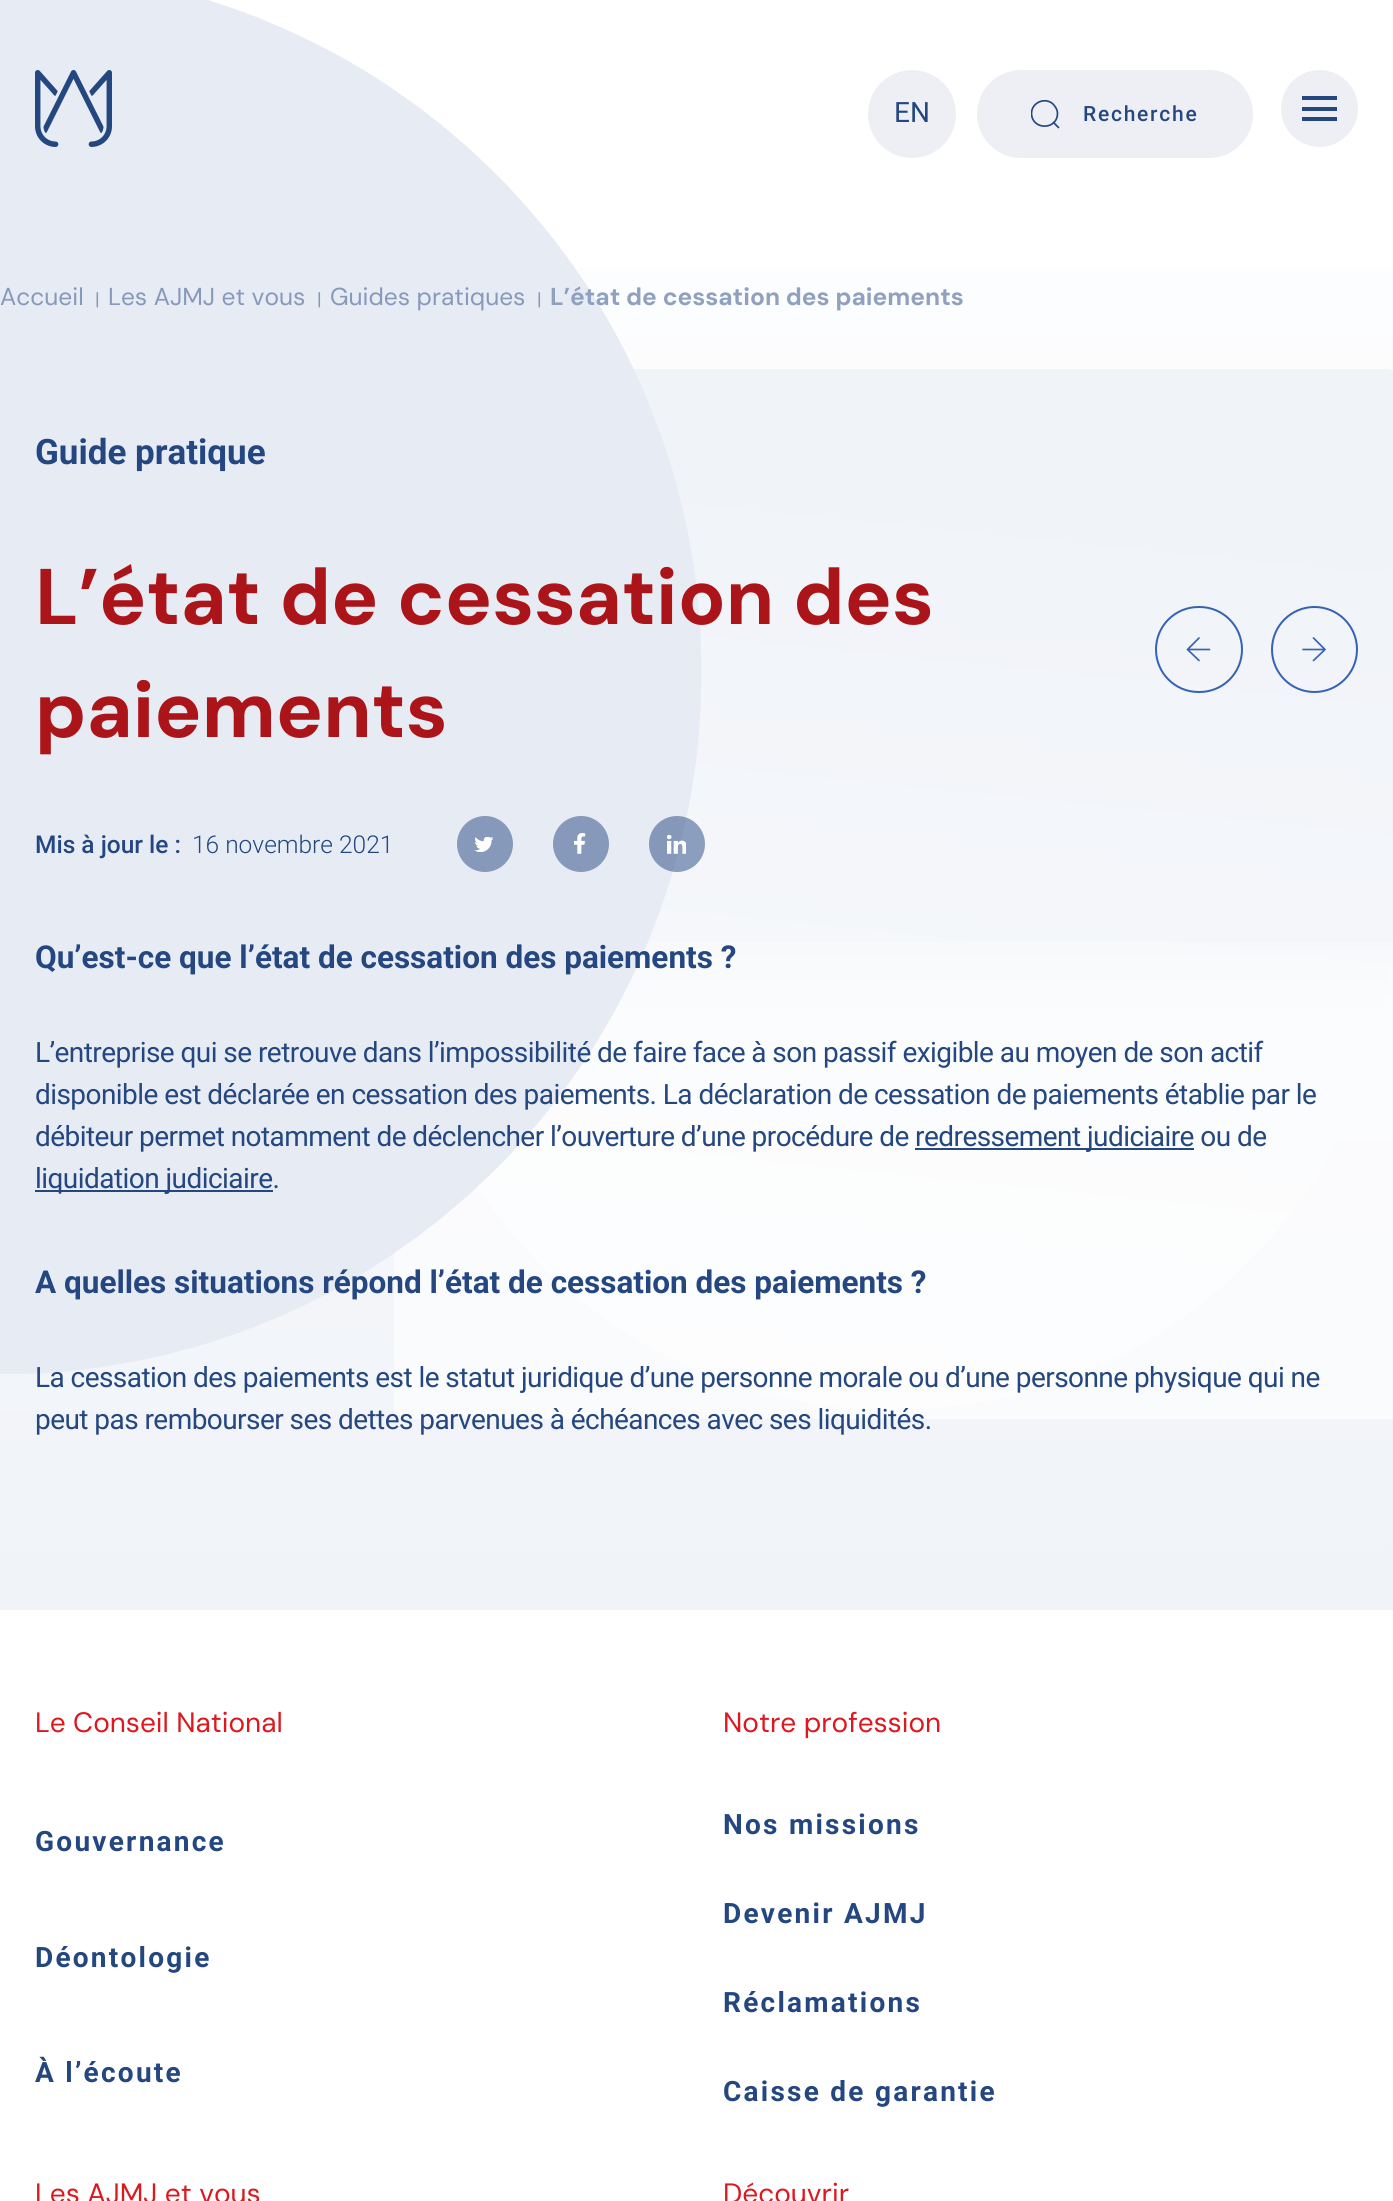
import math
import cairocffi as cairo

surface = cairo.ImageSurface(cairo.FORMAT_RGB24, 1393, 2201)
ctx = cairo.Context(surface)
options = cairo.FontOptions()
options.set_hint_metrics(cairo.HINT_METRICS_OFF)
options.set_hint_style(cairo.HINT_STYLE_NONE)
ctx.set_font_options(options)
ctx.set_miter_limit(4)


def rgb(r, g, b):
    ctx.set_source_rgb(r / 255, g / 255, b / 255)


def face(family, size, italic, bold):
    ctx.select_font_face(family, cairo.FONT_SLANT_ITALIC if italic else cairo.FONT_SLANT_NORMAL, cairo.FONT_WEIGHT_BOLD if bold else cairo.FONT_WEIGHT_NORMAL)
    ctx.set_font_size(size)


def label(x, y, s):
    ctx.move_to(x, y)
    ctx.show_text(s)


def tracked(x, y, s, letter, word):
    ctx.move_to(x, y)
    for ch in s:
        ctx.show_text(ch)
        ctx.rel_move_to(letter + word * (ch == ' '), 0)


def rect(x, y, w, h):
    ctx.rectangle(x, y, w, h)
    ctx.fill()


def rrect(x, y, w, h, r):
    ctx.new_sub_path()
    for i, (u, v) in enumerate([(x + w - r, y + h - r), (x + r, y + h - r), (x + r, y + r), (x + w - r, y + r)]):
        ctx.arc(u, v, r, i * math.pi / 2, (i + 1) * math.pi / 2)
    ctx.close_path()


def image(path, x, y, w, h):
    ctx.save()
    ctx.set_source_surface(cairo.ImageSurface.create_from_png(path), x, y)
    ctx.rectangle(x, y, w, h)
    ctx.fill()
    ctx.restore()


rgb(255, 255, 255)
ctx.paint()
gradient = cairo.LinearGradient(697, 1610, 696, 0)
gradient.add_color_stop_rgba(0, 0.941, 0.953, 0.973, 1)
gradient.add_color_stop_rgba(1, 1, 1, 1, 1)
ctx.set_source(gradient)
rect(0, 268, 1393, 1342)
gradient = cairo.LinearGradient(831, 456, 676, 1996)
gradient.add_color_stop_rgba(0, 0.941, 0.953, 0.973, 1)
gradient.add_color_stop_rgba(1, 1, 1, 1, 1)
ctx.set_source(gradient)
ctx.new_path()
ctx.move_to(893, 1410)
ctx.curve_to(1169, 1410, 1393, 1187, 1393, 911)
ctx.line_to(1393, 373)
ctx.curve_to(1393, 371, 1391, 369, 1389, 369)
ctx.line_to(398, 369)
ctx.curve_to(396, 369, 394, 371, 394, 373)
ctx.line_to(394, 911)
ctx.curve_to(394, 1187, 617, 1410, 893, 1410)
ctx.close_path()
ctx.fill()
gradient = cairo.LinearGradient(893, 1419, 893, 894)
gradient.add_color_stop_rgba(0, 1, 1, 1, 0.6)
gradient.add_color_stop_rgba(0.77, 1, 1, 1, 0.6)
gradient.add_color_stop_rgba(1, 1, 1, 1, 0)
ctx.set_source(gradient)
rect(394, 942, 999, 477)
image('image1.png', 0, 0, 702, 1374)
image('image0.png', 35, 70, 77, 77)
rgb(237, 239, 244)
ctx.arc(1319.5, 108.5, 38.5, 0, 2 * math.pi)
ctx.fill()
rgb(36, 71, 128)
rect(1302, 96, 35, 4)
rect(1302, 107, 35, 4)
rect(1302, 117, 35, 4)
rgb(237, 239, 244)
ctx.arc(912, 114, 44, 0, 2 * math.pi)
ctx.fill()
face('Roboto', 28, 0, 0)
rgb(36, 71, 129)
label(894, 122, 'EN')
rgb(237, 239, 244)
rrect(977, 70, 276, 88, 44)
ctx.fill()
ctx.save()
ctx.rectangle(1031, 100, 30, 28)
ctx.clip()
ctx.new_path()
ctx.move_to(1057.5, 113.5)
ctx.curve_to(1057.5, 130, 1032.5, 130.5, 1031.5, 114)
ctx.curve_to(1031, 101.5, 1048, 95.5, 1055, 106.5)
ctx.curve_to(1056.5, 108.5, 1057.5, 111, 1057.5, 113.5)
ctx.close_path()
rgb(36, 71, 128)
ctx.set_line_width(1.7)
ctx.set_line_cap(cairo.LINE_CAP_ROUND)
ctx.set_line_join(cairo.LINE_JOIN_ROUND)
ctx.stroke()
ctx.restore()
ctx.new_path()
ctx.move_to(1058.5, 127.5)
ctx.line_to(1053.5, 122.5)
rgb(36, 71, 128)
ctx.set_line_width(1.7)
ctx.set_line_cap(cairo.LINE_CAP_ROUND)
ctx.set_line_join(cairo.LINE_JOIN_ROUND)
ctx.stroke()
face('Roboto Medium', 21, 0, 0)
rgb(36, 71, 129)
tracked(1083, 121, 'Recherche', 1.75, 0)
face('DM Sans', 24.5, 0, 0)
rgb(134, 153, 186)
label(0, 305, 'Accueil')
face('Roboto', 18, 0, 1)
label(95, 305, '|')
face('DM Sans', 24.5, 0, 0)
label(108, 305, 'Les AJMJ et vous')
face('Roboto', 18, 0, 1)
label(317, 305, '|')
face('DM Sans', 24.5, 0, 0)
label(330, 305, 'Guides pratiques')
face('Roboto', 18, 0, 1)
label(537, 305, '|')
face('DM Sans', 24.5, 0, 1)
rgb(143, 161, 190)
label(550, 305, 'L’état de cessation des paiements')
face('Roboto', 35, 0, 1)
rgb(36, 71, 129)
label(35, 464, 'Guide pratique')
face('DM Sans', 78.75, 0, 1)
rgb(171, 20, 24)
label(35, 624, 'L’état de cessation des')
label(35, 737, 'paiements')
face('Roboto Medium', 24.5, 0, 0)
rgb(36, 71, 129)
label(35, 853, 'Mis à jour le :')
face('Roboto Light', 24.5, 0, 0)
label(192, 853, '16 novembre 2021')
rgb(134, 153, 186)
ctx.new_path()
ctx.arc(485, 844, 28, 0, 2 * math.pi)
ctx.fill()
image('image2.png', 474, 837, 20, 15)
ctx.arc(581, 844, 28, 0, 2 * math.pi)
ctx.fill()
image('image3.png', 574, 833, 12, 21)
ctx.set_source_rgba(0.141, 0.278, 0.502, 0.5)
ctx.arc(677, 844, 28, 0, 2 * math.pi)
ctx.fill()
image('image4.png', 667, 835, 19, 19)
rrect(1156, 607, 86, 85, 42.5)
rgb(52, 99, 181)
ctx.set_line_width(2)
ctx.set_line_cap(cairo.LINE_CAP_BUTT)
ctx.set_line_join(cairo.LINE_JOIN_MITER)
ctx.stroke()
ctx.new_path()
ctx.move_to(1209.5, 649.5)
ctx.line_to(1187.5, 649.5)
ctx.move_to(1199, 660.5)
ctx.line_to(1187.5, 649.5)
ctx.line_to(1199, 638)
ctx.set_line_width(1.7)
ctx.set_line_cap(cairo.LINE_CAP_ROUND)
ctx.set_line_join(cairo.LINE_JOIN_ROUND)
ctx.stroke()
ctx.arc(1314.5, 649.5, 42.5, 0, 2 * math.pi)
ctx.set_line_width(2)
ctx.set_line_cap(cairo.LINE_CAP_BUTT)
ctx.set_line_join(cairo.LINE_JOIN_MITER)
ctx.stroke()
ctx.new_path()
ctx.move_to(1303, 649.5)
ctx.line_to(1325, 649.5)
ctx.move_to(1313.5, 638)
ctx.line_to(1325, 649.5)
ctx.line_to(1313.5, 660.5)
ctx.set_line_width(1.7)
ctx.set_line_cap(cairo.LINE_CAP_ROUND)
ctx.set_line_join(cairo.LINE_JOIN_ROUND)
ctx.stroke()
face('Roboto', 31.5, 0, 1)
rgb(36, 71, 129)
label(35, 968, 'Qu’est-ce que l’état de cessation des paiements ?')
face('Roboto', 28, 0, 0)
tracked(35, 1062, 'L’entreprise qui se retrouve dans l’impossibilité de faire face à son passif exigible au moyen de son actif', -0.56, 0)
tracked(35, 1104, 'disponible est déclarée en cessation des paiements. La déclaration de cessation de paiements établie par le', -0.56, 0)
tracked(35, 1146, 'débiteur permet notamment de déclencher l’ouverture d’une procédure de', -0.56, 0)
rgb(36, 71, 128)
rect(915, 1148, 279, 2)
rgb(36, 71, 129)
tracked(915, 1146, 'redressement judiciaire ou de', -0.56, 0)
rgb(36, 71, 128)
rect(35, 1190, 238, 2)
rgb(36, 71, 129)
tracked(35, 1188, 'liquidation judiciaire.', -0.56, 0)
face('Roboto', 31.5, 0, 1)
label(35, 1293, 'A quelles situations répond l’état de cessation des paiements ?')
face('Roboto', 28, 0, 0)
tracked(35, 1387, 'La cessation des paiements est le statut juridique d’une personne morale ou d’une personne physique qui ne', -0.56, 0)
tracked(35, 1429, 'peut pas rembourser ses dettes parvenues à échéances avec ses liquidités.', -0.56, 0)
face('DM Sans', 28, 0, 0)
rgb(221, 24, 30)
label(35, 1732, 'Le Conseil National')
face('Roboto', 28, 0, 1)
rgb(36, 71, 129)
tracked(35, 1851, 'Gouvernance', 2.25, 0)
tracked(35, 1967, 'Déontologie', 2.25, 0)
tracked(35, 2082, 'À l’écoute', 2.25, 0)
face('DM Sans', 28, 0, 0)
rgb(221, 24, 30)
label(723, 1732, 'Notre profession')
face('Roboto', 28, 0, 1)
rgb(36, 71, 129)
tracked(723, 1834, 'Nos missions', 2.25, 0)
tracked(723, 1923, 'Devenir AJMJ', 2.25, 0)
tracked(723, 2012, 'Réclamations', 2.25, 0)
tracked(723, 2101, 'Caisse de garantie', 2.25, 0)
face('DM Sans', 28, 0, 0)
rgb(221, 24, 30)
label(35, 2203, 'Les AJMJ et vous')
label(723, 2203, 'Découvrir')
surface.write_to_png('render.png')
